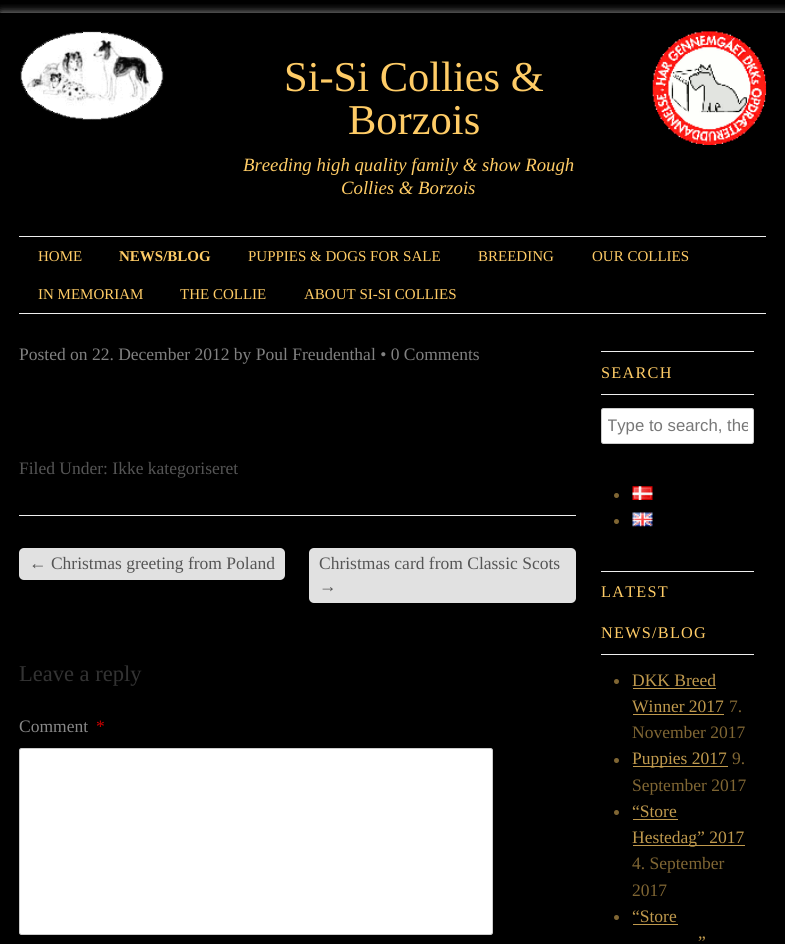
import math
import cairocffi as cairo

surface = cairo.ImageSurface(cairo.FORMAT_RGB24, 785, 944)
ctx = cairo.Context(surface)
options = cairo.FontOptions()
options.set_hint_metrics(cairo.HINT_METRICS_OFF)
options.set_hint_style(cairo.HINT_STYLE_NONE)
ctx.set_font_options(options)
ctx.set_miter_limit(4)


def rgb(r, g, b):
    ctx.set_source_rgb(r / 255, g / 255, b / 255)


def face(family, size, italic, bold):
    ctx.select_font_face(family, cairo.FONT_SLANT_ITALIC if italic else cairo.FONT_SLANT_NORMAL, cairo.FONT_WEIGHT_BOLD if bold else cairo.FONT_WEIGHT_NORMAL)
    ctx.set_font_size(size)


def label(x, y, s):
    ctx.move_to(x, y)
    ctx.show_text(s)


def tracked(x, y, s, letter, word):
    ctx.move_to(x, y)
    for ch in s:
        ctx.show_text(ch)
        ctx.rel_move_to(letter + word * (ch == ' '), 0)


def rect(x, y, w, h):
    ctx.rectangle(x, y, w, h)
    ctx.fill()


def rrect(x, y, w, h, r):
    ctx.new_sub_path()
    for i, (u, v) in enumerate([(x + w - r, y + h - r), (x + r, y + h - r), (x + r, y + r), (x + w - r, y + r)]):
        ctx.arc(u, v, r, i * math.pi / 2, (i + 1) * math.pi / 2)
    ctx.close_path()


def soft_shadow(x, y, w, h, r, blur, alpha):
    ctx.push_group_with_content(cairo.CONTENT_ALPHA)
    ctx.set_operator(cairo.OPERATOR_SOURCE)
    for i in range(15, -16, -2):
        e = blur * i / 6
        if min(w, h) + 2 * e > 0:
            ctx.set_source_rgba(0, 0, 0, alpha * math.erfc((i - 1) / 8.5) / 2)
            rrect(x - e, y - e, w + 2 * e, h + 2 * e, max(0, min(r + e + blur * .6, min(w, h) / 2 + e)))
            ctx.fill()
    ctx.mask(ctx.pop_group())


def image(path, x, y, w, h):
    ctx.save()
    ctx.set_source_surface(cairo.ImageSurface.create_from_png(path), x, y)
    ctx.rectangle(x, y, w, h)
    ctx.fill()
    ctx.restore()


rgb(0, 0, 0)
ctx.paint()
ctx.save()
ctx.rectangle(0, 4, 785, 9)
ctx.clip()
rgb(199, 199, 199)
soft_shadow(1, 14, 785, 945, 0, 5, 1)
ctx.restore()
image('image0.png', 20, 31, 144, 89)
face('Liberation Serif', 42.5, 0, 0)
rgb(255, 204, 102)
label(284, 91, 'Si-Si Collies &')
label(348, 134, 'Borzois')
face('Liberation Serif', 18.75, 1, 0)
label(243, 171, 'Breeding high quality family & show Rough')
label(341, 194, 'Collies & Borzois')
image('image1.png', 652, 31, 115, 114)
rgb(238, 238, 238)
rect(19, 236, 747, 1)
rect(19, 313, 747, 1)
face('Liberation Serif', 15, 0, 0)
rgb(255, 204, 102)
label(38, 261, 'HOME')
face('Liberation Serif', 15, 0, 1)
label(119, 261, 'NEWS/BLOG')
face('Liberation Serif', 15, 0, 0)
label(248, 261, 'PUPPIES & DOGS FOR SALE')
label(478, 261, 'BREEDING')
label(592, 261, 'OUR COLLIES')
label(38, 299, 'IN MEMORIAM')
label(180, 299, 'THE COLLIE')
label(304, 299, 'ABOUT SI-SI COLLIES')
rgb(239, 239, 239)
rect(19, 515, 557, 1)
face('Liberation Serif', 17.5, 0, 0)
rgb(129, 129, 129)
label(19, 360, 'Posted on 22. December 2012 by Poul Freudenthal • 0 Comments')
rgb(85, 85, 85)
label(19, 474, 'Filed Under: Ikke kategoriseret')
rgb(225, 225, 225)
rrect(19, 548, 266, 32, 5)
ctx.fill()
rgb(85, 85, 85)
label(29, 569, '← Christmas greeting from Poland')
rgb(225, 225, 225)
rrect(309, 548, 267, 55, 5)
ctx.fill()
rgb(85, 85, 85)
label(319, 569, 'Christmas card from Classic Scots')
label(319, 592, '→')
face('Liberation Serif', 22.5, 0, 0)
rgb(51, 51, 51)
label(19, 681, 'Leave a reply')
face('Liberation Serif', 17.5, 0, 0)
rgb(136, 136, 136)
label(19, 732, 'Comment')
rgb(204, 0, 0)
label(96, 732, '*')
rgb(255, 255, 255)
rrect(19.5, 748.5, 473, 186, 2)
ctx.fill_preserve()
rgb(204, 204, 204)
ctx.set_line_width(1)
ctx.stroke()
rgb(238, 238, 238)
rect(601, 351, 153, 1)
rect(601, 394, 153, 1)
face('Liberation Serif', 16.25, 0, 0)
rgb(255, 204, 102)
tracked(601, 378, 'SEARCH', 1.25, 0)
rgb(255, 255, 255)
rrect(601.5, 408.5, 152, 35, 2)
ctx.fill_preserve()
rgb(204, 204, 204)
ctx.stroke()
ctx.save()
ctx.rectangle(608, 416, 140, 19)
ctx.clip()
face('Liberation Sans', 16.75, 0, 0)
rgb(119, 119, 119)
label(607, 431, 'Type to search, the')
ctx.restore()
rgb(128, 102, 51)
ctx.new_path()
ctx.arc(616.5, 495.5, 2.5, 0, 2 * math.pi)
ctx.fill()
image('image2.png', 632, 486, 21, 14)
ctx.arc(616.5, 521.5, 2.5, 0, 2 * math.pi)
ctx.fill()
image('image3.png', 632, 512, 21, 15)
rgb(238, 238, 238)
rect(601, 571, 153, 1)
rect(601, 654, 153, 1)
rgb(255, 204, 102)
tracked(601, 597, 'LATEST', 1.25, 0)
tracked(601, 638, 'NEWS/BLOG', 1.25, 0)
rgb(128, 102, 51)
ctx.new_path()
ctx.arc(616.5, 681.5, 2.5, 0, 2 * math.pi)
ctx.fill()
face('Liberation Serif', 17.5, 0, 0)
rgb(191, 153, 77)
label(632, 686, 'DKK Breed')
rect(633, 688, 83, 1)
label(632, 712, 'Winner 2017')
rect(633, 714, 91, 1)
rgb(128, 102, 51)
label(729, 712, '7.')
label(632, 738, 'November 2017')
ctx.new_path()
ctx.arc(616.5, 760.5, 2.5, 0, 2 * math.pi)
ctx.fill()
rgb(191, 153, 77)
rect(633, 766, 95, 1)
label(632, 764, 'Puppies 2017')
rgb(128, 102, 51)
label(732, 764, '9.')
label(632, 791, 'September 2017')
ctx.new_path()
ctx.arc(616.5, 812.5, 2.5, 0, 2 * math.pi)
ctx.fill()
rgb(191, 153, 77)
label(632, 817, '“Store')
rect(633, 819, 45, 1)
rect(633, 845, 112, 1)
label(632, 843, 'Hestedag” 2017')
rgb(128, 102, 51)
label(632, 869, '4. September')
label(632, 896, '2017')
ctx.new_path()
ctx.arc(616.5, 917.5, 2.5, 0, 2 * math.pi)
ctx.fill()
rgb(191, 153, 77)
label(632, 922, '“Store')
rect(633, 924, 45, 1)
label(698, 948, '”')
surface.write_to_png('render.png')
